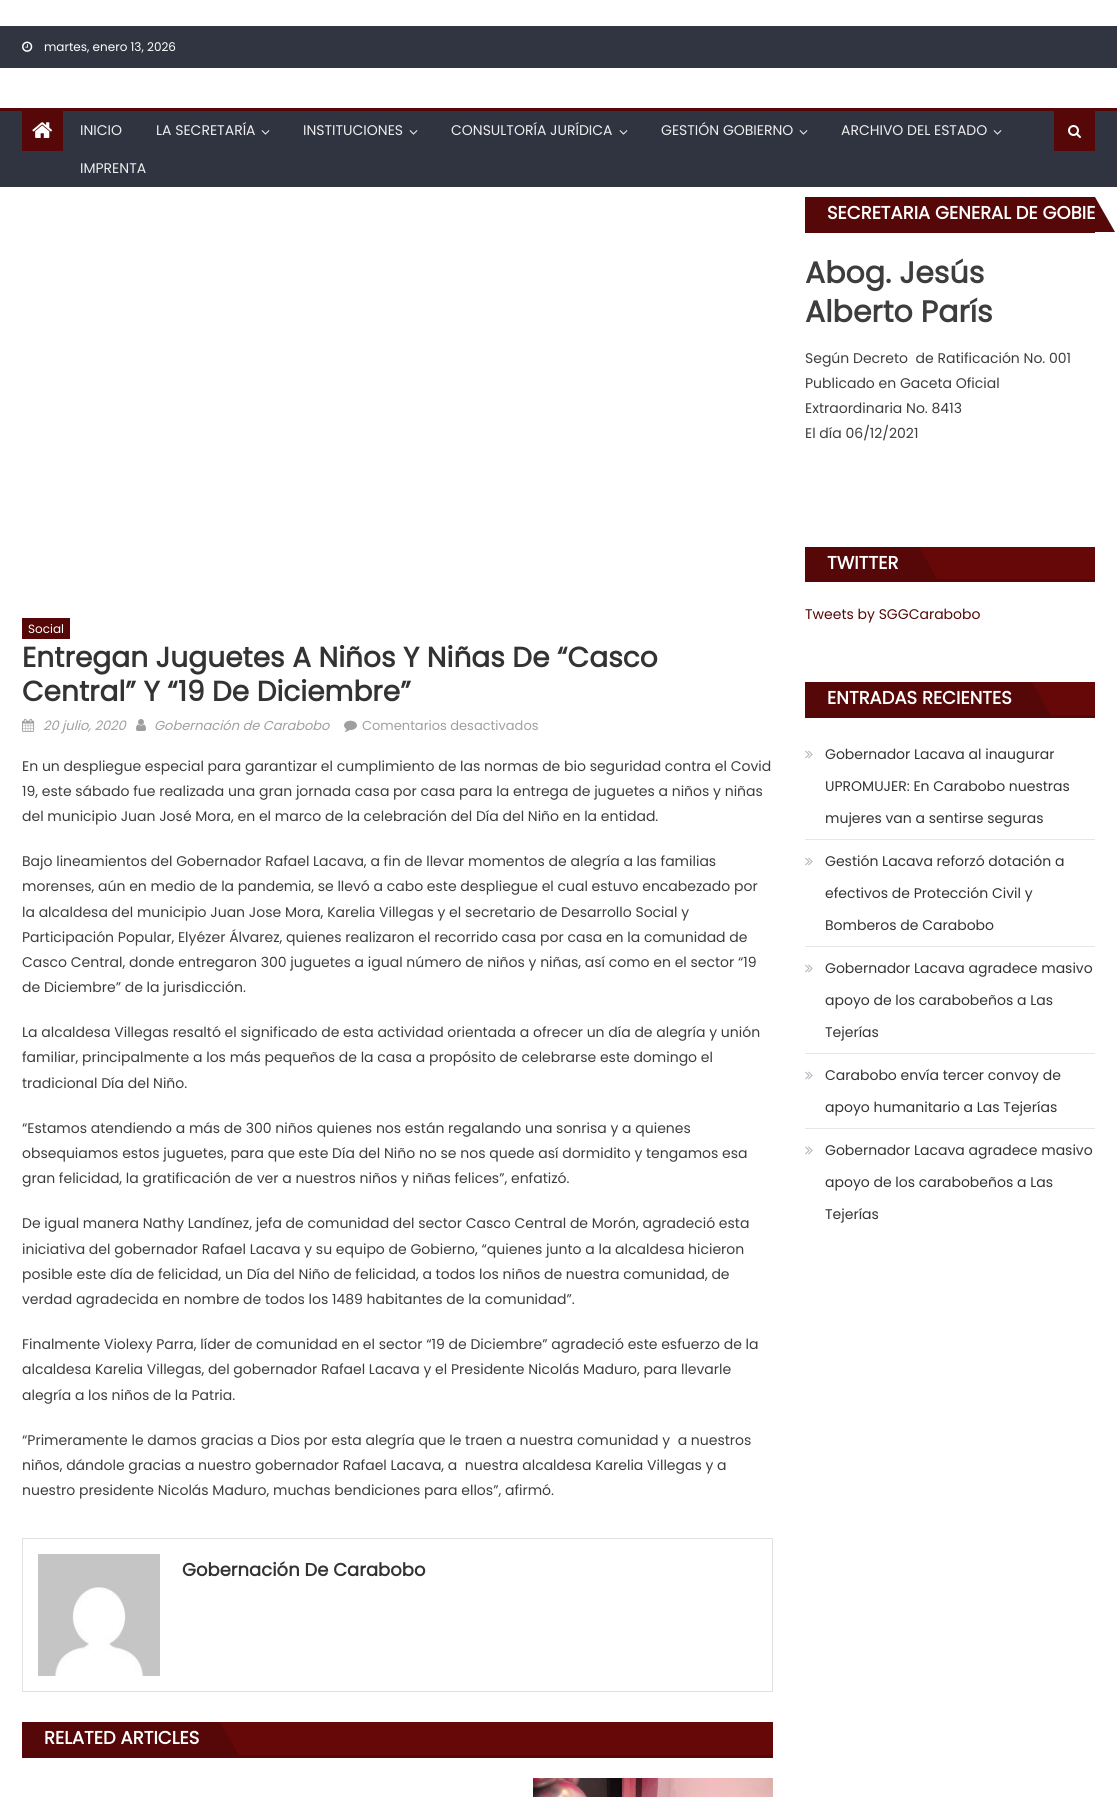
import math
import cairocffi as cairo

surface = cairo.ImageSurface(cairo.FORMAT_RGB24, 1117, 1797)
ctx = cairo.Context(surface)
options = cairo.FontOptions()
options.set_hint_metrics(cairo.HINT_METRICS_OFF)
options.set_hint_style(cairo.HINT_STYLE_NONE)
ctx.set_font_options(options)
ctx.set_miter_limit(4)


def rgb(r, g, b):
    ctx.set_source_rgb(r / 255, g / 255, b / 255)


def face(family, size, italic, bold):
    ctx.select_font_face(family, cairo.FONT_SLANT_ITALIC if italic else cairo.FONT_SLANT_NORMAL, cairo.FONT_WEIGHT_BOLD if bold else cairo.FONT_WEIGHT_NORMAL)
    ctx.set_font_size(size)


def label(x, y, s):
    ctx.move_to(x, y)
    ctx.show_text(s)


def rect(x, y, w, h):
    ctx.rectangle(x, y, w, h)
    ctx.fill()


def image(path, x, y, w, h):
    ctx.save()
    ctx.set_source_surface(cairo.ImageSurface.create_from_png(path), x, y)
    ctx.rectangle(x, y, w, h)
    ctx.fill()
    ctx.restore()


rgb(255, 255, 255)
ctx.paint()
rgb(49, 53, 65)
rect(0, 26, 1117, 42)
image('image0.png', 22, 41, 11, 11)
face('Poppins', 12, 0, 0)
rgb(255, 255, 255)
label(44, 51, 'martes, enero 13, 2026')
rgb(48, 52, 64)
rect(0, 111, 1117, 76)
rgb(86, 7, 7)
rect(0, 108, 1117, 3)
rect(22, 111, 41, 40)
image('image1.png', 32, 122, 21, 16)
face('Poppins', 14, 0, 0)
rgb(238, 238, 238)
label(80, 135, 'INICIO')
label(156, 135, 'LA SECRETARÍA')
image('image2.png', 261, 130, 9, 5)
label(303, 135, 'INSTITUCIONES')
image('image2.png', 409, 130, 9, 5)
label(451, 135, 'CONSULTORÍA JURÍDICA')
image('image2.png', 619, 130, 9, 5)
label(661, 135, 'GESTIÓN GOBIERNO')
image('image2.png', 799, 130, 9, 5)
label(841, 135, 'ARCHIVO DEL ESTADO')
image('image2.png', 993, 130, 9, 5)
label(80, 173, 'IMPRENTA')
rgb(86, 7, 7)
rect(1054, 111, 41, 40)
image('image3.png', 1068, 125, 13, 13)
rect(22, 618, 48, 21)
face('Poppins', 12, 0, 0)
rgb(255, 255, 255)
label(28, 633, 'Social')
face('Poppins', 28, 0, 1)
rgb(51, 51, 51)
label(22, 667, 'Entregan Juguetes A Niños Y Niñas De “Casco')
label(22, 701, 'Central” Y “19 De Diciembre”')
image('image4.png', 22, 718, 13, 14)
face('Poppins', 13, 1, 0)
rgb(159, 159, 159)
label(43, 730, '20 julio, 2020')
image('image5.png', 136, 719, 10, 12)
label(154, 730, 'Gobernación de Carabobo')
image('image6.png', 344, 720, 13, 12)
face('Poppins', 13, 0, 0)
label(362, 730, 'Comentarios desactivados')
face('Poppins', 14, 0, 0)
rgb(61, 61, 61)
label(22, 771, 'En un despliegue especial para garantizar el cumplimiento de las normas de bio seguridad contra el Covid')
label(22, 796, '19, este sábado fue realizada una gran jornada casa por casa para la entrega de juguetes a niños y niñas')
label(22, 821, 'del municipio Juan José Mora, en el marco de la celebración del Día del Niño en la entidad.')
label(22, 866, 'Bajo lineamientos del Gobernador Rafael Lacava, a fin de llevar momentos de alegría a las familias')
label(22, 891, 'morenses, aún en medio de la pandemia, se llevó a cabo este despliegue el cual estuvo encabezado por')
label(22, 917, 'la alcaldesa del municipio Juan Jose Mora, Karelia Villegas y el secretario de Desarrollo Social y')
label(22, 942, 'Participación Popular, Elyézer Álvarez, quienes realizaron el recorrido casa por casa en la comunidad de')
label(22, 967, 'Casco Central, donde entregaron 300 juguetes a igual número de niños y niñas, así como en el sector “19')
label(22, 992, 'de Diciembre” de la jurisdicción.')
label(22, 1037, 'La alcaldesa Villegas resaltó el significado de esta actividad orientada a ofrecer un día de alegría y unión')
label(22, 1062, 'familiar, principalmente a los más pequeños de la casa a propósito de celebrarse este domingo el')
label(22, 1088, 'tradicional Día del Niño.')
label(22, 1133, '“Estamos atendiendo a más de 300 niños quienes nos están regalando una sonrisa y a quienes')
label(22, 1158, 'obsequiamos estos juguetes, para que este Día del Niño no se nos quede así dormidito y tengamos esa')
label(22, 1183, 'gran felicidad, la gratificación de ver a nuestros niños y niñas felices”, enfatizó.')
label(22, 1228, 'De igual manera Nathy Landínez, jefa de comunidad del sector Casco Central de Morón, agradeció esta')
label(22, 1254, 'iniciativa del gobernador Rafael Lacava y su equipo de Gobierno, “quienes junto a la alcaldesa hicieron')
label(22, 1279, 'posible este día de felicidad, un Día del Niño de felicidad, a todos los niños de nuestra comunidad, de')
label(22, 1304, 'verdad agradecida en nombre de todos los 1489 habitantes de la comunidad”.')
label(22, 1349, 'Finalmente Violexy Parra, líder de comunidad en el sector “19 de Diciembre” agradeció este esfuerzo de la')
label(22, 1374, 'alcaldesa Karelia Villegas, del gobernador Rafael Lacava y el Presidente Nicolás Maduro, para llevarle')
label(22, 1400, 'alegría a los niños de la Patria.')
label(22, 1445, '“Primeramente le damos gracias a Dios por esta alegría que le traen a nuestra comunidad y  a nuestros')
label(22, 1470, 'niños, dándole gracias a nuestro gobernador Rafael Lacava, a  nuestra alcaldesa Karelia Villegas y a')
label(22, 1495, 'nuestro presidente Nicolás Maduro, muchas bendiciones para ellos”, afirmó.')
ctx.rectangle(22.5, 1538.5, 750, 153)
rgb(225, 225, 225)
ctx.set_line_width(1)
ctx.stroke()
image('image7.png', 38, 1554, 122, 122)
face('Poppins', 18, 0, 1)
rgb(51, 51, 51)
label(182, 1576, 'Gobernación De Carabobo')
rgb(103, 8, 8)
rect(220, 1722, 553, 33)
rgb(86, 7, 7)
rect(22, 1755, 751, 3)
rect(22, 1722, 2, 36)
rect(24, 1722, 196, 33)
rgb(255, 255, 255)
label(44, 1744, 'RELATED ARTICLES')
rgb(86, 7, 7)
ctx.new_path()
ctx.move_to(240, 1757)
ctx.line_to(220, 1757)
ctx.line_to(220, 1722)
ctx.close_path()
ctx.fill()
image('image8.png', 533, 1778, 240, 19)
rect(805, 230, 290, 3)
rect(805, 197, 2, 36)
rect(807, 197, 288, 33)
rgb(255, 255, 255)
label(827, 219, 'SECRETARIA GENERAL DE GOBIE')
rgb(86, 7, 7)
ctx.new_path()
ctx.move_to(1115, 232)
ctx.line_to(1095, 232)
ctx.line_to(1095, 197)
ctx.close_path()
ctx.fill()
face('Poppins', 30, 0, 1)
rgb(61, 61, 61)
label(805, 283, 'Abog. Jesús')
label(805, 322, 'Alberto París')
face('Poppins', 14, 0, 0)
label(805, 363, 'Según Decreto  de Ratificación No. 001')
label(805, 388, 'Publicado en Gaceta Oficial')
label(805, 413, 'Extraordinaria No. 8413')
label(805, 438, 'El día 06/12/2021')
rgb(103, 8, 8)
rect(919, 547, 176, 32)
rgb(86, 7, 7)
rect(805, 579, 290, 3)
rect(805, 547, 2, 35)
rect(807, 547, 112, 32)
face('Poppins', 18, 0, 1)
rgb(255, 255, 255)
label(827, 569, 'TWITTER')
rgb(86, 7, 7)
ctx.new_path()
ctx.move_to(939, 582)
ctx.line_to(919, 582)
ctx.line_to(919, 547)
ctx.close_path()
ctx.fill()
face('Poppins', 14, 0, 0)
label(805, 619, 'Tweets by SGGCarabobo')
rgb(103, 8, 8)
rect(1032, 682, 63, 33)
rgb(86, 7, 7)
rect(805, 715, 290, 3)
rect(805, 682, 2, 36)
rect(807, 682, 225, 33)
face('Poppins', 18, 0, 1)
rgb(255, 255, 255)
label(827, 704, 'ENTRADAS RECIENTES')
rgb(86, 7, 7)
ctx.new_path()
ctx.move_to(1052, 717)
ctx.line_to(1032, 717)
ctx.line_to(1032, 682)
ctx.close_path()
ctx.fill()
rgb(230, 230, 230)
rect(805, 839, 290, 1)
image('image9.png', 805, 750, 8, 9)
face('Poppins', 14, 0, 0)
rgb(51, 51, 51)
label(825, 759, 'Gobernador Lacava al inaugurar')
label(825, 791, 'UPROMUJER: En Carabobo nuestras')
label(825, 823, 'mujeres van a sentirse seguras')
rgb(230, 230, 230)
rect(805, 946, 290, 1)
image('image9.png', 805, 857, 8, 9)
rgb(51, 51, 51)
label(825, 866, 'Gestión Lacava reforzó dotación a')
label(825, 898, 'efectivos de Protección Civil y')
label(825, 930, 'Bomberos de Carabobo')
rgb(230, 230, 230)
rect(805, 1053, 290, 1)
image('image9.png', 805, 964, 8, 9)
rgb(51, 51, 51)
label(825, 973, 'Gobernador Lacava agradece masivo')
label(825, 1005, 'apoyo de los carabobeños a Las')
label(825, 1037, 'Tejerías')
rgb(230, 230, 230)
rect(805, 1128, 290, 1)
image('image9.png', 805, 1071, 8, 9)
rgb(51, 51, 51)
label(825, 1080, 'Carabobo envía tercer convoy de')
label(825, 1112, 'apoyo humanitario a Las Tejerías')
image('image9.png', 805, 1146, 8, 9)
label(825, 1155, 'Gobernador Lacava agradece masivo')
label(825, 1187, 'apoyo de los carabobeños a Las')
label(825, 1219, 'Tejerías')
surface.write_to_png('render.png')
